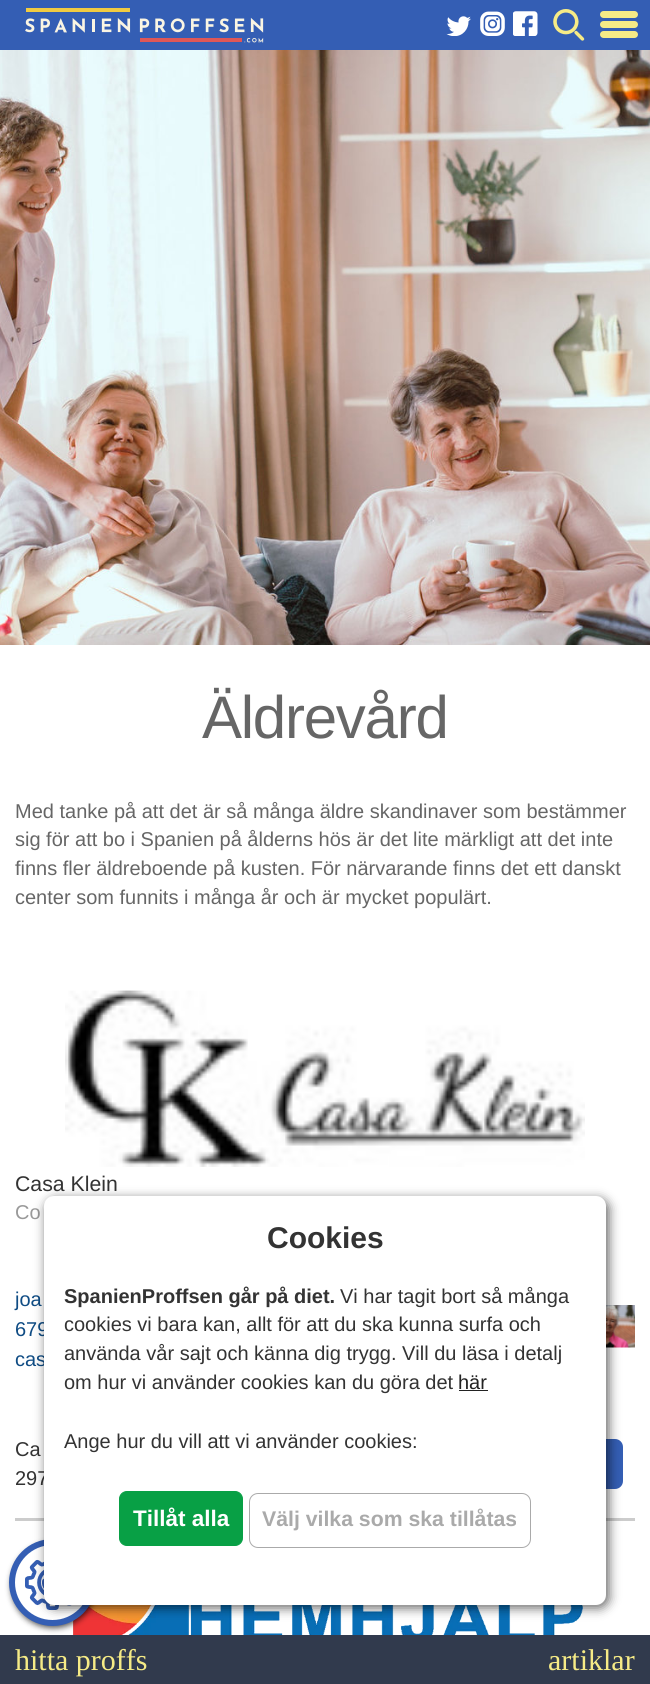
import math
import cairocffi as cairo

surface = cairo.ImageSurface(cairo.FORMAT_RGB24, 650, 1684)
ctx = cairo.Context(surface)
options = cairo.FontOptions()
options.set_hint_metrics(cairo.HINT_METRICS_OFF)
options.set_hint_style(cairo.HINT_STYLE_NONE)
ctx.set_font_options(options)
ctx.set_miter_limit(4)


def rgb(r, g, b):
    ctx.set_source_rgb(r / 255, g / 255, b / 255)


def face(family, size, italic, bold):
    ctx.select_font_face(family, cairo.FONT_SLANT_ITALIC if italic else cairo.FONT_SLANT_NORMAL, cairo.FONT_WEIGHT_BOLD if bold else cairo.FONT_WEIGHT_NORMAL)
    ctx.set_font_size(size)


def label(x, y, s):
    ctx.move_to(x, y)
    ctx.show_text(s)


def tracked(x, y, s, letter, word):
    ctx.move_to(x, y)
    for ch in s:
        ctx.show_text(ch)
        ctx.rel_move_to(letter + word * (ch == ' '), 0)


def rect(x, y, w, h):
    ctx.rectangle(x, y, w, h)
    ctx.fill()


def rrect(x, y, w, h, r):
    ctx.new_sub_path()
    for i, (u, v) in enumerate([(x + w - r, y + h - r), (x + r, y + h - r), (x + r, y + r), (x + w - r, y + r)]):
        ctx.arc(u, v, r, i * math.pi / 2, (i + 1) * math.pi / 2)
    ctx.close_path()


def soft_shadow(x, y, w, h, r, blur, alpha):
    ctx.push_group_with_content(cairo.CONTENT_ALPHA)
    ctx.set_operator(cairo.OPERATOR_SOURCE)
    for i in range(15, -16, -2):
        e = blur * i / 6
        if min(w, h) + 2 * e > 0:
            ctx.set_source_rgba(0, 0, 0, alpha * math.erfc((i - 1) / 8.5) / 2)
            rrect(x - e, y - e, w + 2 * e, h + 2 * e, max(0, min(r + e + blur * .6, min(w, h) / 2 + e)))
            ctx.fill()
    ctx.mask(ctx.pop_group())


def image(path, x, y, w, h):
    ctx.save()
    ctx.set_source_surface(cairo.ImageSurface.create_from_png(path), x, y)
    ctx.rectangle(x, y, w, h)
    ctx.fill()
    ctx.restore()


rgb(52, 94, 180)
ctx.paint()
image('image0.png', 25, 8, 239, 35)
image('image1.png', 446, 16, 25, 20)
image('image2.png', 480, 11, 25, 25)
image('image3.png', 513, 11, 25, 25)
image('image4.png', 553, 9, 32, 32)
rgb(246, 235, 134)
rrect(600, 11, 38, 7, 3.5)
ctx.fill()
rrect(600, 21, 38, 7, 3.5)
ctx.fill()
rrect(600, 31, 38, 7, 3.5)
ctx.fill()
rgb(255, 255, 255)
rect(0, 645, 650, 990)
image('image5.png', 0, 50, 650, 595)
face('Liberation Sans', 60, 0, 0)
rgb(102, 102, 102)
tracked(202, 738, 'Äldrevård', -1.25, 0)
face('Liberation Sans', 20, 0, 0)
label(15, 818, 'Med tanke på att det är så många äldre skandinaver som bestämmer')
label(15, 846, 'sig för att bo i Spanien på ålderns hös är det lite märkligt att det inte')
label(15, 875, 'finns fler äldreboende på kusten. För närvarande finns det ett danskt')
label(15, 904, 'center som funnits i många år och är mycket populärt.')
rgb(204, 204, 204)
rect(15, 1518, 620, 3)
image('image6.png', 65, 990, 520, 177)
face('Liberation Sans', 21.25, 0, 0)
rgb(51, 51, 51)
label(15, 1191, 'Casa Klein')
face('Liberation Sans', 20, 0, 0)
rgb(153, 153, 153)
label(15, 1219, 'Co')
rgb(15, 76, 132)
label(15, 1306, 'joa')
label(15, 1336, '679')
label(15, 1366, 'cas')
image('image7.png', 606, 1305, 29, 43)
rgb(51, 51, 51)
label(15, 1456, 'Ca')
label(15, 1485, '297')
rgb(52, 94, 180)
rrect(573, 1439, 50, 50, 8)
ctx.fill()
image('image8.png', 73, 1605, 510, 30)
rgb(0, 0, 0)
soft_shadow(11, 1543, 85, 85, 42.5, 3, 0.67)
rgb(255, 255, 255)
ctx.arc(52.5, 1582.5, 40.5, 0, 2 * math.pi)
ctx.fill_preserve()
rgb(52, 94, 180)
ctx.set_line_width(6)
ctx.stroke()
image('image9.png', 25, 1559, 47, 51)
rgb(0, 0, 0)
soft_shadow(46, 1199, 563, 409, 10, 5.5, 0.6)
rgb(255, 255, 255)
rrect(44, 1196, 562, 409, 10)
ctx.fill()
face('Liberation Sans', 30, 0, 1)
rgb(51, 51, 51)
label(267, 1248, 'Cookies')
face('Liberation Sans', 20, 0, 1)
label(64, 1303, 'SpanienProffsen går på diet.')
face('Liberation Sans', 20, 0, 0)
label(340, 1303, 'Vi har tagit bort så många')
label(64, 1331, 'cookies vi bara kan, allt för att du ska kunna surfa och')
label(64, 1360, 'använda vår sajt och känna dig trygg. Vill du läsa i detalj')
label(64, 1389, 'om hur vi använder cookies kan du göra det')
rgb(34, 34, 34)
label(458, 1389, 'här')
rect(459, 1390, 29, 1)
rgb(51, 51, 51)
label(64, 1448, 'Ange hur du vill att vi använder cookies:')
rgb(8, 160, 69)
rrect(119.5, 1491.5, 123, 54, 7.5)
ctx.fill_preserve()
ctx.set_line_width(1)
ctx.stroke()
face('Liberation Sans', 22.5, 0, 1)
rgb(255, 255, 255)
label(133, 1526, 'Tillåt alla')
rrect(249.5, 1493.5, 281, 54, 8.5)
rgb(170, 170, 170)
ctx.stroke()
face('Liberation Sans', 21.25, 0, 1)
label(262, 1526, 'Välj vilka som ska tillåtas')
rgb(49, 58, 77)
rect(0, 1635, 650, 49)
face('Liberation Serif', 30, 0, 0)
rgb(246, 235, 134)
label(15, 1670, 'hitta proffs')
label(548, 1670, 'artiklar')
surface.write_to_png('render.png')
